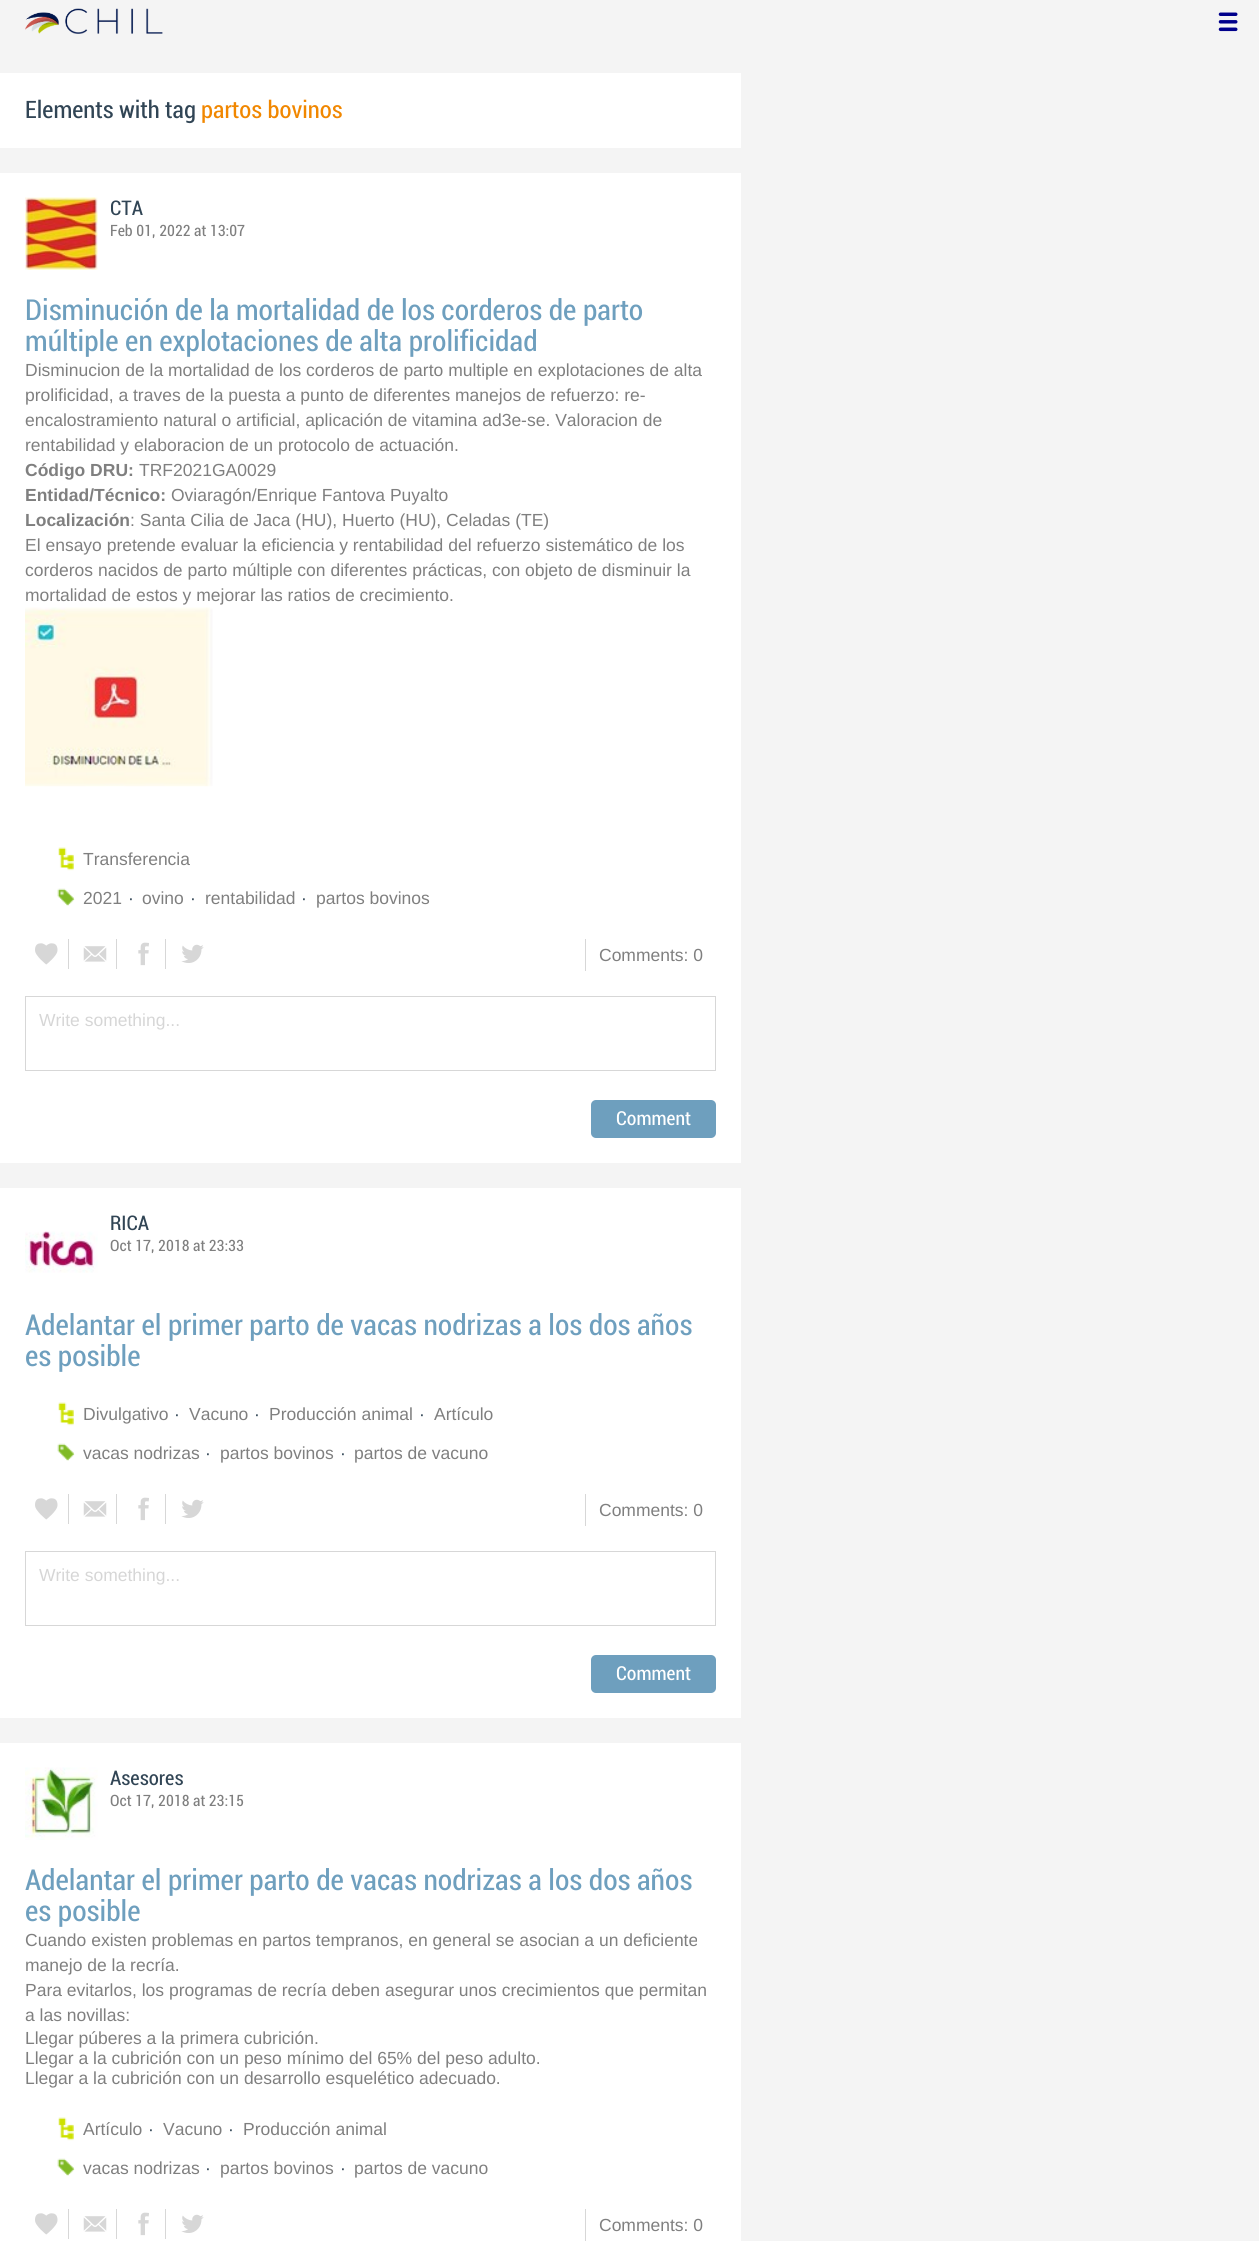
import math
import cairocffi as cairo

surface = cairo.ImageSurface(cairo.FORMAT_RGB24, 1259, 2241)
ctx = cairo.Context(surface)
options = cairo.FontOptions()
options.set_hint_metrics(cairo.HINT_METRICS_OFF)
options.set_hint_style(cairo.HINT_STYLE_NONE)
ctx.set_font_options(options)
ctx.set_miter_limit(4)


def rgb(r, g, b):
    ctx.set_source_rgb(r / 255, g / 255, b / 255)


def face(family, size, italic, bold):
    ctx.select_font_face(family, cairo.FONT_SLANT_ITALIC if italic else cairo.FONT_SLANT_NORMAL, cairo.FONT_WEIGHT_BOLD if bold else cairo.FONT_WEIGHT_NORMAL)
    ctx.set_font_size(size)


def label(x, y, s):
    ctx.move_to(x, y)
    ctx.show_text(s)


def rect(x, y, w, h):
    ctx.rectangle(x, y, w, h)
    ctx.fill()


def rrect(x, y, w, h, r):
    ctx.new_sub_path()
    for i, (u, v) in enumerate([(x + w - r, y + h - r), (x + r, y + h - r), (x + r, y + r), (x + w - r, y + r)]):
        ctx.arc(u, v, r, i * math.pi / 2, (i + 1) * math.pi / 2)
    ctx.close_path()


def image(path, x, y, w, h):
    ctx.save()
    ctx.set_source_surface(cairo.ImageSurface.create_from_png(path), x, y)
    ctx.rectangle(x, y, w, h)
    ctx.fill()
    ctx.restore()


rgb(244, 244, 244)
ctx.paint()
image('image0.png', 25, 8, 138, 26)
image('image1.png', 1218, 12, 20, 20)
rgb(255, 255, 255)
rect(0, 73, 741, 75)
face('Roboto', 25, 0, 0)
rgb(49, 69, 85)
label(25, 118, 'Elements with tag')
rgb(241, 135, 0)
label(201, 118, 'partos bovinos')
rgb(255, 255, 255)
rect(0, 173, 741, 990)
image('image2.png', 25, 197, 73, 73)
face('Roboto', 21, 0, 0)
rgb(49, 69, 85)
label(110, 215, 'CTA')
face('Roboto', 16.25, 0, 0)
rgb(127, 127, 127)
label(110, 236, 'Feb 01, 2022 at 13:07')
face('Roboto', 30, 0, 0)
rgb(110, 159, 190)
label(25, 320, 'Disminución de la mortalidad de los corderos de parto')
label(25, 351, 'múltiple en explotaciones de alta prolificidad')
face('Liberation Sans', 17.5, 0, 0)
rgb(127, 127, 127)
label(25, 376, 'Disminucion de la mortalidad de los corderos de parto multiple en explotaciones de alta')
label(25, 401, 'prolificidad, a traves de la puesta a punto de diferentes manejos de refuerzo: re-')
label(25, 426, 'encalostramiento natural o artificial, aplicación de vitamina ad3e-se. Valoracion de')
label(25, 451, 'rentabilidad y elaboracion de un protocolo de actuación.')
face('Liberation Sans', 17.5, 0, 1)
label(25, 476, 'Código DRU:')
face('Liberation Sans', 17.5, 0, 0)
label(139, 476, 'TRF2021GA0029')
face('Liberation Sans', 17.5, 0, 1)
label(25, 501, 'Entidad/Técnico:')
face('Liberation Sans', 17.5, 0, 0)
label(171, 501, 'Oviaragón/Enrique Fantova Puyalto')
face('Liberation Sans', 17.5, 0, 1)
label(25, 526, 'Localización')
face('Liberation Sans', 17.5, 0, 0)
label(130, 526, ': Santa Cilia de Jaca (HU), Huerto (HU), Celadas (TE)')
label(25, 551, 'El ensayo pretende evaluar la eficiencia y rentabilidad del refuerzo sistemático de los')
label(25, 576, 'corderos nacidos de parto múltiple con diferentes prácticas, con objeto de disminuir la')
label(25, 601, 'mortalidad de estos y mejorar las ratios de crecimiento.')
image('image3.png', 25, 607, 188, 180)
image('image4.png', 58, 847, 16, 24)
label(83, 865, 'Transferencia')
image('image5.png', 57, 888, 18, 18)
label(83, 904, '2021')
rgb(49, 69, 85)
label(128, 904, '·')
rgb(127, 127, 127)
label(142, 904, 'ovino')
rgb(49, 69, 85)
label(190, 904, '·')
rgb(127, 127, 127)
label(205, 904, 'rentabilidad')
rgb(49, 69, 85)
label(301, 904, '·')
rgb(127, 127, 127)
label(316, 904, 'partos bovinos')
rgb(215, 215, 215)
rect(68, 939, 1, 30)
image('image6.png', 35, 943, 23, 22)
rect(116, 939, 1, 30)
image('image7.png', 83, 946, 24, 16)
rect(165, 939, 1, 30)
image('image8.png', 138, 942, 11, 24)
image('image9.png', 181, 944, 23, 19)
rect(585, 939, 1, 32)
rgb(127, 127, 127)
label(599, 961, 'Comments: 0')
ctx.rectangle(25.5, 996.5, 690, 74)
rgb(215, 215, 215)
ctx.set_line_width(1)
ctx.stroke()
rgb(214, 214, 214)
label(39, 1026, 'Write something...')
rgb(110, 159, 190)
rrect(591, 1100, 125, 38, 5)
ctx.fill()
face('Roboto', 20, 0, 0)
rgb(255, 255, 255)
label(616, 1125, 'Comment')
rect(0, 1188, 741, 530)
face('Roboto', 21, 0, 0)
rgb(49, 69, 85)
label(110, 1230, 'RICA')
image('image10.png', 25, 1231, 73, 42)
face('Roboto', 16.25, 0, 0)
rgb(127, 127, 127)
label(110, 1251, 'Oct 17, 2018 at 23:33')
face('Roboto', 30, 0, 0)
rgb(110, 159, 190)
label(25, 1335, 'Adelantar el primer parto de vacas nodrizas a los dos años')
label(25, 1366, 'es posible')
image('image4.png', 58, 1402, 16, 24)
face('Liberation Sans', 17.5, 0, 0)
rgb(127, 127, 127)
label(83, 1420, 'Divulgativo')
rgb(49, 69, 85)
label(174, 1420, '·')
rgb(127, 127, 127)
label(189, 1420, 'Vacuno')
rgb(49, 69, 85)
label(254, 1420, '·')
rgb(127, 127, 127)
label(269, 1420, 'Producción animal')
rgb(49, 69, 85)
label(419, 1420, '·')
rgb(127, 127, 127)
label(434, 1420, 'Artículo')
image('image5.png', 57, 1443, 18, 18)
label(83, 1459, 'vacas nodrizas')
rgb(49, 69, 85)
label(205, 1459, '·')
rgb(127, 127, 127)
label(220, 1459, 'partos bovinos')
rgb(49, 69, 85)
label(340, 1459, '·')
rgb(127, 127, 127)
label(354, 1459, 'partos de vacuno')
rgb(215, 215, 215)
rect(68, 1494, 1, 30)
image('image6.png', 35, 1498, 23, 22)
rect(116, 1494, 1, 30)
image('image7.png', 83, 1501, 24, 16)
rect(165, 1494, 1, 30)
image('image8.png', 138, 1497, 11, 24)
image('image9.png', 181, 1499, 23, 19)
rect(585, 1494, 1, 32)
rgb(127, 127, 127)
label(599, 1516, 'Comments: 0')
ctx.rectangle(25.5, 1551.5, 690, 74)
rgb(215, 215, 215)
ctx.stroke()
rgb(214, 214, 214)
label(39, 1581, 'Write something...')
rgb(110, 159, 190)
rrect(591, 1655, 125, 38, 5)
ctx.fill()
face('Roboto', 20, 0, 0)
rgb(255, 255, 255)
label(616, 1680, 'Comment')
rect(0, 1743, 741, 498)
image('image11.png', 25, 1767, 73, 73)
face('Roboto', 21, 0, 0)
rgb(49, 69, 85)
label(110, 1785, 'Asesores')
face('Roboto', 16.25, 0, 0)
rgb(127, 127, 127)
label(110, 1806, 'Oct 17, 2018 at 23:15')
face('Roboto', 30, 0, 0)
rgb(110, 159, 190)
label(25, 1890, 'Adelantar el primer parto de vacas nodrizas a los dos años')
label(25, 1921, 'es posible')
face('Liberation Sans', 17.5, 0, 0)
rgb(127, 127, 127)
label(25, 1946, 'Cuando existen problemas en partos tempranos, en general se asocian a un deficiente')
label(25, 1971, 'manejo de la recría.')
label(25, 1996, 'Para evitarlos, los programas de recría deben asegurar unos crecimientos que permitan')
label(25, 2021, 'a las novillas:')
label(25, 2044, 'Llegar púberes a la primera cubrición.')
label(25, 2064, 'Llegar a la cubrición con un peso mínimo del 65% del peso adulto.')
label(25, 2084, 'Llegar a la cubrición con un desarrollo esquelético adecuado.')
image('image4.png', 58, 2117, 16, 24)
label(83, 2135, 'Artículo')
rgb(49, 69, 85)
label(148, 2135, '·')
rgb(127, 127, 127)
label(163, 2135, 'Vacuno')
rgb(49, 69, 85)
label(228, 2135, '·')
rgb(127, 127, 127)
label(243, 2135, 'Producción animal')
image('image5.png', 57, 2158, 18, 18)
label(83, 2174, 'vacas nodrizas')
rgb(49, 69, 85)
label(205, 2174, '·')
rgb(127, 127, 127)
label(220, 2174, 'partos bovinos')
rgb(49, 69, 85)
label(340, 2174, '·')
rgb(127, 127, 127)
label(354, 2174, 'partos de vacuno')
rgb(215, 215, 215)
rect(68, 2209, 1, 30)
image('image6.png', 35, 2213, 23, 22)
rect(116, 2209, 1, 30)
image('image7.png', 83, 2216, 24, 16)
rect(165, 2209, 1, 30)
image('image8.png', 138, 2212, 11, 24)
image('image9.png', 181, 2214, 23, 19)
rect(585, 2209, 1, 32)
rgb(127, 127, 127)
label(599, 2231, 'Comments: 0')
surface.write_to_png('render.png')
